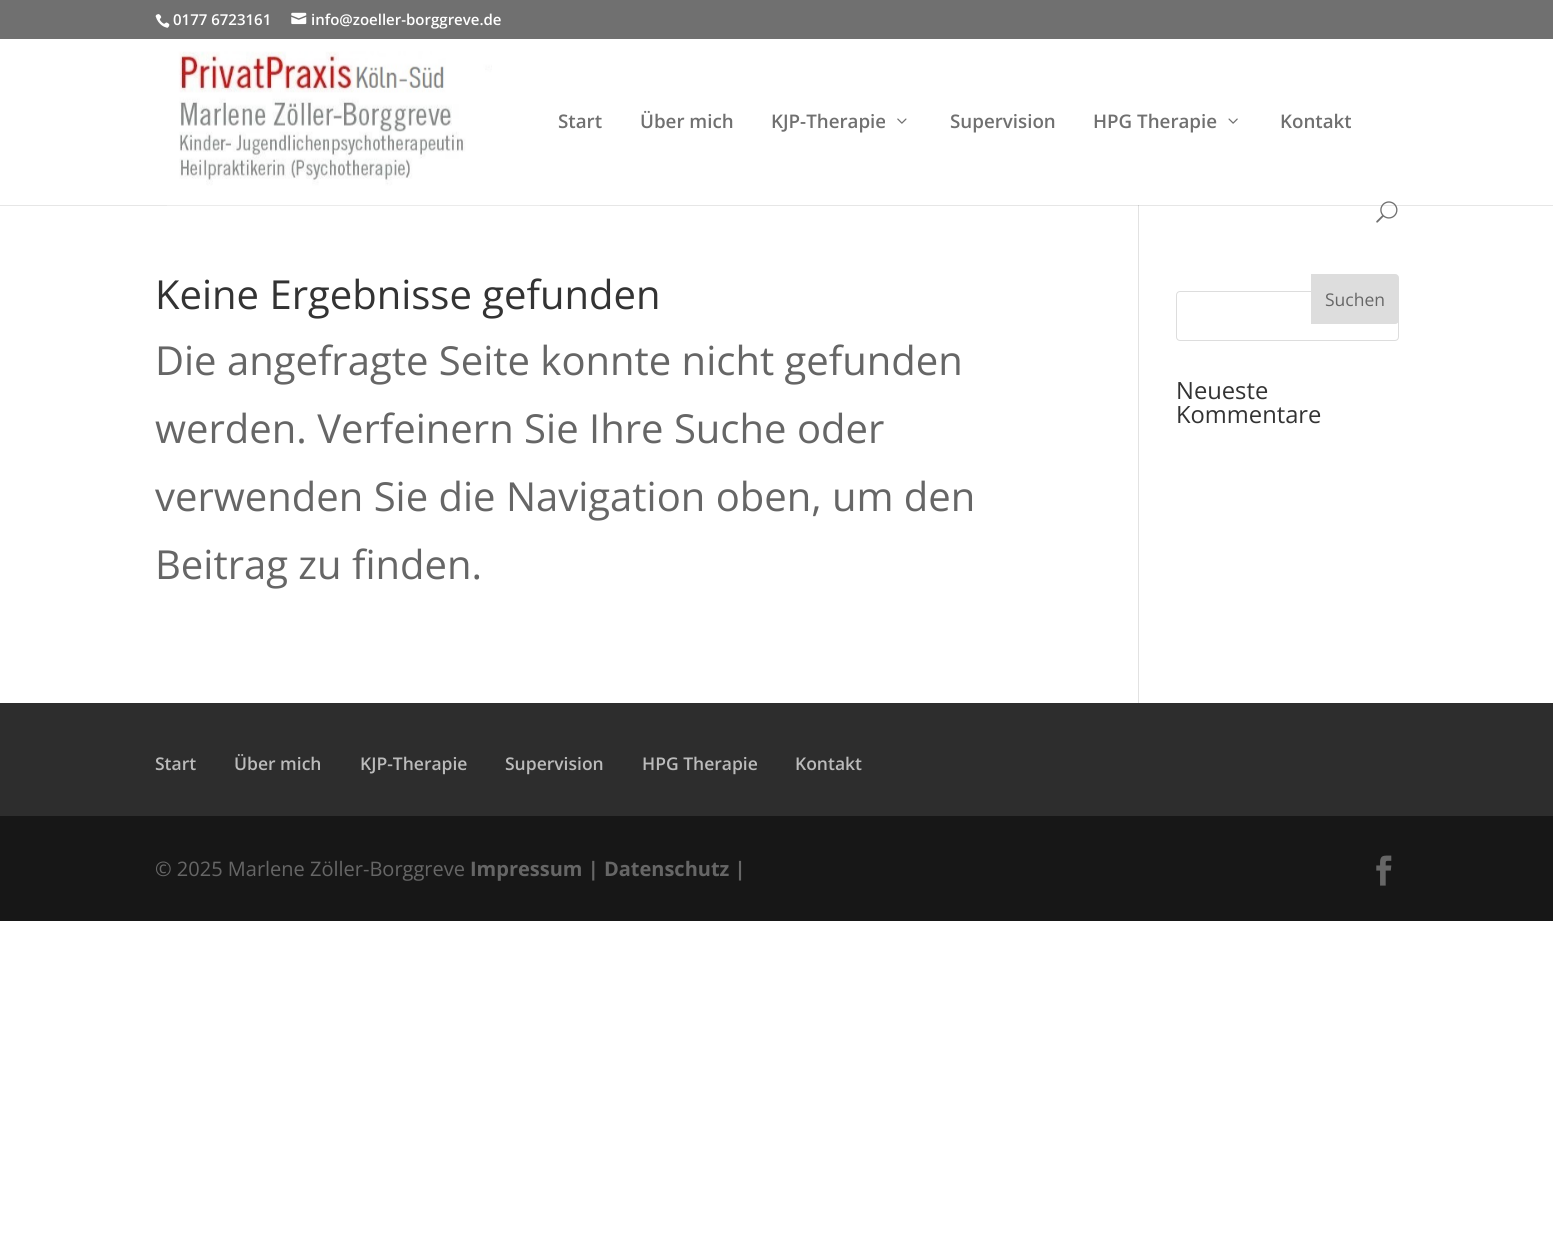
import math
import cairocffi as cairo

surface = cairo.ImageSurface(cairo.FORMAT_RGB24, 1553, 1233)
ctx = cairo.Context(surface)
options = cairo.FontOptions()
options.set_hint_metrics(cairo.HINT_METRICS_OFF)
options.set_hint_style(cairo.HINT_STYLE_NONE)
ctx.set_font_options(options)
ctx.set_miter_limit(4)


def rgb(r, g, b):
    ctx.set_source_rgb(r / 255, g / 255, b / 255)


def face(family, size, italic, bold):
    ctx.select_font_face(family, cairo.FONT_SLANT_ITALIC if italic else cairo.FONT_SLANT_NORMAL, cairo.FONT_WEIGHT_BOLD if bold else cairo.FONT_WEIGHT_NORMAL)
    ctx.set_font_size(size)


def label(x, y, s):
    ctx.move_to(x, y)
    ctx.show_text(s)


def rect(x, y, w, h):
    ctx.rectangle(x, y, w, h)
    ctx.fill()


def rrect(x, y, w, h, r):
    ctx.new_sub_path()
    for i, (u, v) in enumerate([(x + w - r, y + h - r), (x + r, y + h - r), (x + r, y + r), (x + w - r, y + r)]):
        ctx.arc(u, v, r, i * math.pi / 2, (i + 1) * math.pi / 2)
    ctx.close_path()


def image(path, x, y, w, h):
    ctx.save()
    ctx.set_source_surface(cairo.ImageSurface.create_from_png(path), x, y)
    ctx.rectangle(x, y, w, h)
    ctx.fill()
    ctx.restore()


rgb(255, 255, 255)
ctx.paint()
rgb(112, 112, 112)
rect(0, 0, 1553, 39)
image('image0.png', 155, 14, 15, 14)
face('Open Sans SemiBold', 15, 0, 0)
rgb(255, 255, 255)
label(173, 25, '0177 6723161')
image('image1.png', 291, 12, 16, 13)
label(311, 25, 'info@zoeller-borggreve.de')
rgb(226, 226, 226)
rect(1138, 201, 1, 502)
ctx.set_source_rgba(0, 0, 0, 0.1)
ctx.new_path()
ctx.move_to(0, 205)
ctx.line_to(0, 206)
ctx.line_to(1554, 206)
ctx.line_to(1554, 40)
ctx.line_to(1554, 205)
ctx.close_path()
ctx.fill()
rgb(255, 255, 255)
rect(1138, 201, 1, 4)
image('image2.png', 167, 51, 373, 155)
face('Open Sans SemiBold', 18.75, 0, 0)
rgb(112, 112, 112)
label(558, 128, 'Start')
label(640, 128, 'Über mich')
label(771, 128, 'KJP-Therapie')
image('image3.png', 897, 118, 10, 6)
label(950, 128, 'Supervision')
label(1093, 128, 'HPG Therapie')
image('image4.png', 1228, 118, 10, 6)
label(1280, 128, 'Kontakt')
image('image5.png', 1376, 201, 22, 22)
face('Open Sans', 40, 0, 0)
rgb(51, 51, 51)
label(155, 309, 'Keine Ergebnisse gefunden')
rgb(102, 102, 102)
label(155, 375, 'Die angefragte Seite konnte nicht gefunden')
label(155, 443, 'werden. Verfeinern Sie Ihre Suche oder')
label(155, 511, 'verwenden Sie die Navigation oben, um den')
label(155, 579, 'Beitrag zu finden.')
rrect(1176.5, 291.5, 222, 49, 3.5)
rgb(221, 221, 221)
ctx.set_line_width(1)
ctx.stroke()
ctx.new_path()
ctx.move_to(1311.5, 274.5)
ctx.line_to(1395, 274.5)
ctx.curve_to(1397, 274.5, 1398.5, 276, 1398.5, 278)
ctx.line_to(1398.5, 320)
ctx.curve_to(1398.5, 322, 1397, 323.5, 1395, 323.5)
ctx.line_to(1311.5, 323.5)
ctx.close_path()
ctx.fill_preserve()
ctx.stroke()
face('Open Sans', 17.5, 0, 0)
rgb(102, 102, 102)
label(1325, 306, 'Suchen')
face('Open Sans', 23.75, 0, 0)
rgb(51, 51, 51)
label(1176, 399, 'Neueste')
label(1176, 423, 'Kommentare')
rgb(45, 45, 45)
rect(0, 703, 1553, 113)
face('Open Sans SemiBold', 17.5, 0, 0)
rgb(187, 187, 187)
label(155, 770, 'Start')
label(234, 770, 'Über mich')
label(360, 770, 'KJP-Therapie')
label(505, 770, 'Supervision')
label(642, 770, 'HPG Therapie')
label(795, 770, 'Kontakt')
rgb(23, 23, 23)
rect(0, 816, 1553, 105)
face('Open Sans', 20, 0, 0)
rgb(102, 102, 102)
label(155, 876, '© 2025 Marlene Zöller-Borggreve')
face('Open Sans', 20, 0, 1)
label(470, 876, 'Impressum | Datenschutz |')
image('image6.png', 1376, 855, 16, 31)
surface.write_to_png('render.png')
